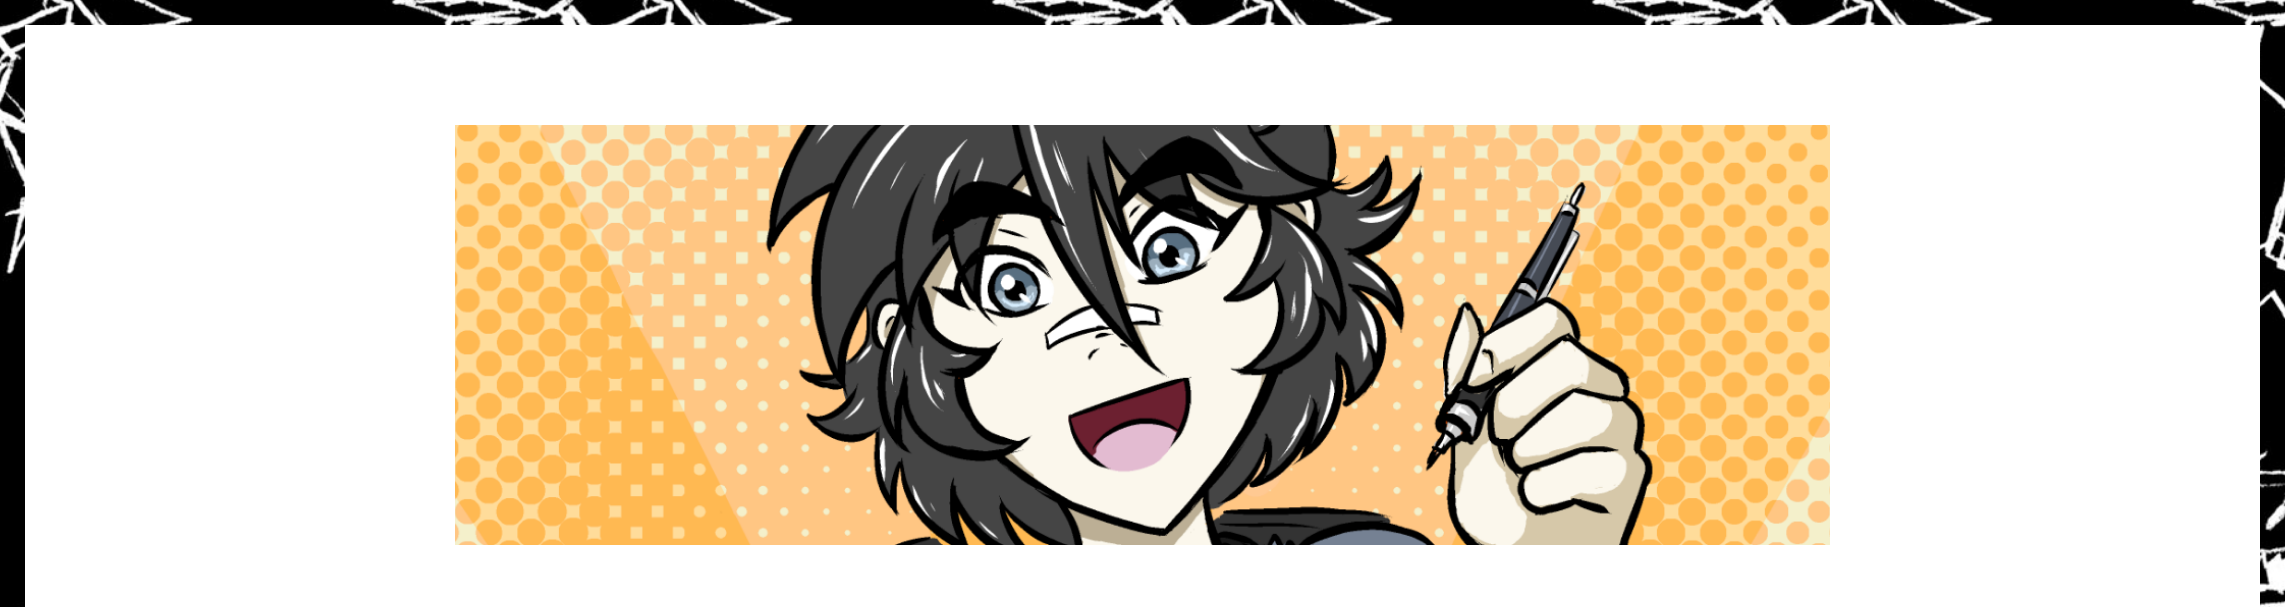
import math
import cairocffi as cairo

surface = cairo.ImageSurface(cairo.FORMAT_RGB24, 2285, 607)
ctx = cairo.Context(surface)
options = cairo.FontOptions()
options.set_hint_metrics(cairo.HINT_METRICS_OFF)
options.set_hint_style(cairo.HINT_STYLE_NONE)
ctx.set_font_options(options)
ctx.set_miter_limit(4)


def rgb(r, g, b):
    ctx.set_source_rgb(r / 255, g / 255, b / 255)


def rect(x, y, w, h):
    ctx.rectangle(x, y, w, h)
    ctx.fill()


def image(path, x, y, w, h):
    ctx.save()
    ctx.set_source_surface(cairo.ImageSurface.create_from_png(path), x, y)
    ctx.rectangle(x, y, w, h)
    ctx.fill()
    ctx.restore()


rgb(255, 255, 255)
ctx.paint()
image('image0.png', 0, 0, 2285, 607)
rgb(255, 255, 255)
rect(25, 25, 2235, 582)
image('image1.png', 455, 125, 1375, 420)
surface.write_to_png('render.png')
